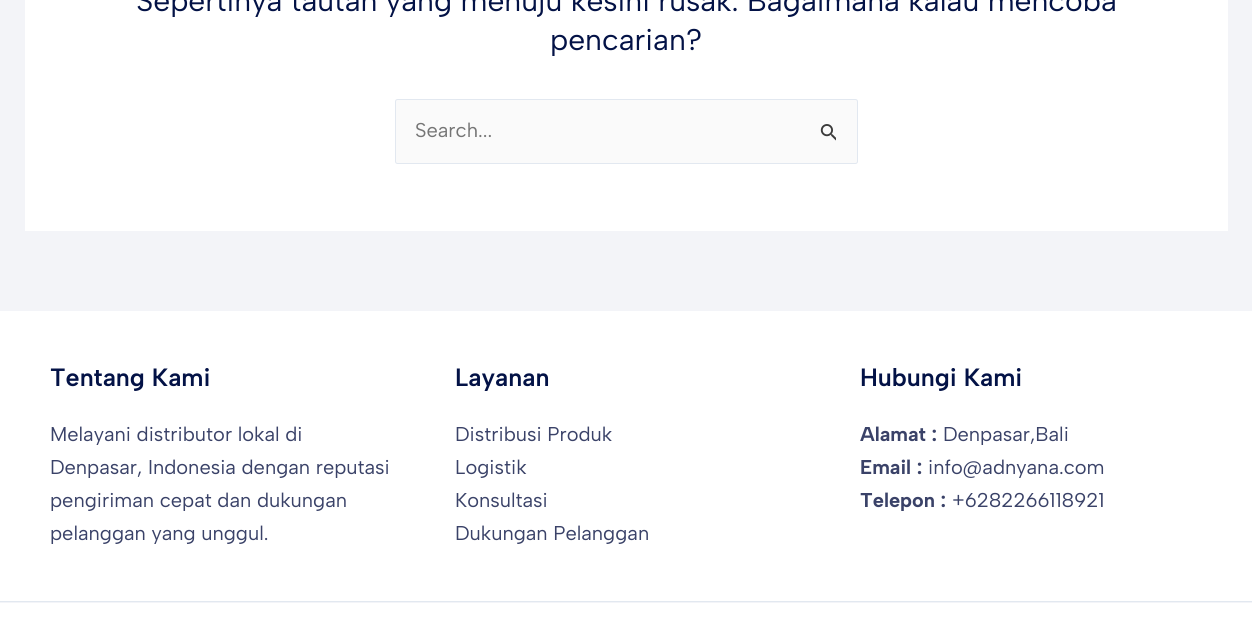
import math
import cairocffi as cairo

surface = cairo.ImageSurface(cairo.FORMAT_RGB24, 1252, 626)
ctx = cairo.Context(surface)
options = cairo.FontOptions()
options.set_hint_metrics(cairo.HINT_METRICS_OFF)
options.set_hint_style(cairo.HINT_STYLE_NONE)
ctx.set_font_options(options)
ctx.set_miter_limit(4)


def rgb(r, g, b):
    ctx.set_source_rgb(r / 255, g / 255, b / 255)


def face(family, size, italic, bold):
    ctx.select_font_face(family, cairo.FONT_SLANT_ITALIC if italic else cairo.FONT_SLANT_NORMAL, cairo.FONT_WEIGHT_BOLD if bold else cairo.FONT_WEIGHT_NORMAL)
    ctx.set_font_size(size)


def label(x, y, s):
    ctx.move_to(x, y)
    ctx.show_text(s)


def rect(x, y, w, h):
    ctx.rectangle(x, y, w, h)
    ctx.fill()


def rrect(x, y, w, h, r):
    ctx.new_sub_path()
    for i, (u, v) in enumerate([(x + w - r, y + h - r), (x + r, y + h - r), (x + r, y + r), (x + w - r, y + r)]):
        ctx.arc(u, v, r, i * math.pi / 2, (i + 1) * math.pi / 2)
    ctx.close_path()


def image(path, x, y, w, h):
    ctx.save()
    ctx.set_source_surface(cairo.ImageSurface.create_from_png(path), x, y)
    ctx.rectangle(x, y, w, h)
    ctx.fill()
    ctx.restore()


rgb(243, 244, 248)
ctx.paint()
rgb(255, 255, 255)
rect(25, 0, 1203, 231)
face('Albert Sans', 30, 0, 0)
rgb(3, 18, 70)
label(136, 11, 'Sepertinya tautan yang menuju kesini rusak. Bagaimana kalau mencoba')
label(550, 50, 'pencarian?')
rgb(250, 250, 250)
rrect(395.5, 99.5, 462, 64, 2)
ctx.fill_preserve()
rgb(226, 232, 240)
ctx.set_line_width(1)
ctx.stroke()
face('Albert Sans', 20, 0, 0)
rgb(117, 117, 117)
label(415, 137, 'Search...')
image('image0.png', 820, 124, 16, 17)
rgb(255, 255, 255)
rect(0, 311, 1252, 290)
face('Albert Sans SemiBold', 25, 0, 0)
rgb(3, 18, 70)
label(50, 386, 'Tentang Kami')
face('Albert Sans', 20, 0, 0)
rgb(58, 66, 104)
label(50, 441, 'Melayani distributor lokal di')
label(50, 474, 'Denpasar, Indonesia dengan reputasi')
label(50, 507, 'pengiriman cepat dan dukungan')
label(50, 540, 'pelanggan yang unggul.')
face('Albert Sans SemiBold', 25, 0, 0)
rgb(3, 18, 70)
label(455, 386, 'Layanan')
face('Albert Sans', 20, 0, 0)
rgb(58, 66, 104)
label(455, 441, 'Distribusi Produk')
label(455, 474, 'Logistik')
label(455, 507, 'Konsultasi')
label(455, 540, 'Dukungan Pelanggan')
face('Albert Sans SemiBold', 25, 0, 0)
rgb(3, 18, 70)
label(860, 386, 'Hubungi Kami')
face('Albert Sans', 20, 0, 1)
rgb(58, 66, 104)
label(860, 441, 'Alamat :')
face('Albert Sans', 20, 0, 0)
label(943, 441, 'Denpasar,Bali')
face('Albert Sans', 20, 0, 1)
label(860, 474, 'Email :')
face('Albert Sans', 20, 0, 0)
label(928, 474, 'info@adnyana.com')
face('Albert Sans', 20, 0, 1)
label(860, 507, 'Telepon :')
face('Albert Sans', 20, 0, 0)
label(952, 507, '+6282266118921')
rgb(255, 255, 255)
rect(0, 603, 1252, 23)
rgb(226, 232, 240)
rect(0, 601, 1252, 1)
surface.write_to_png('render.png')
